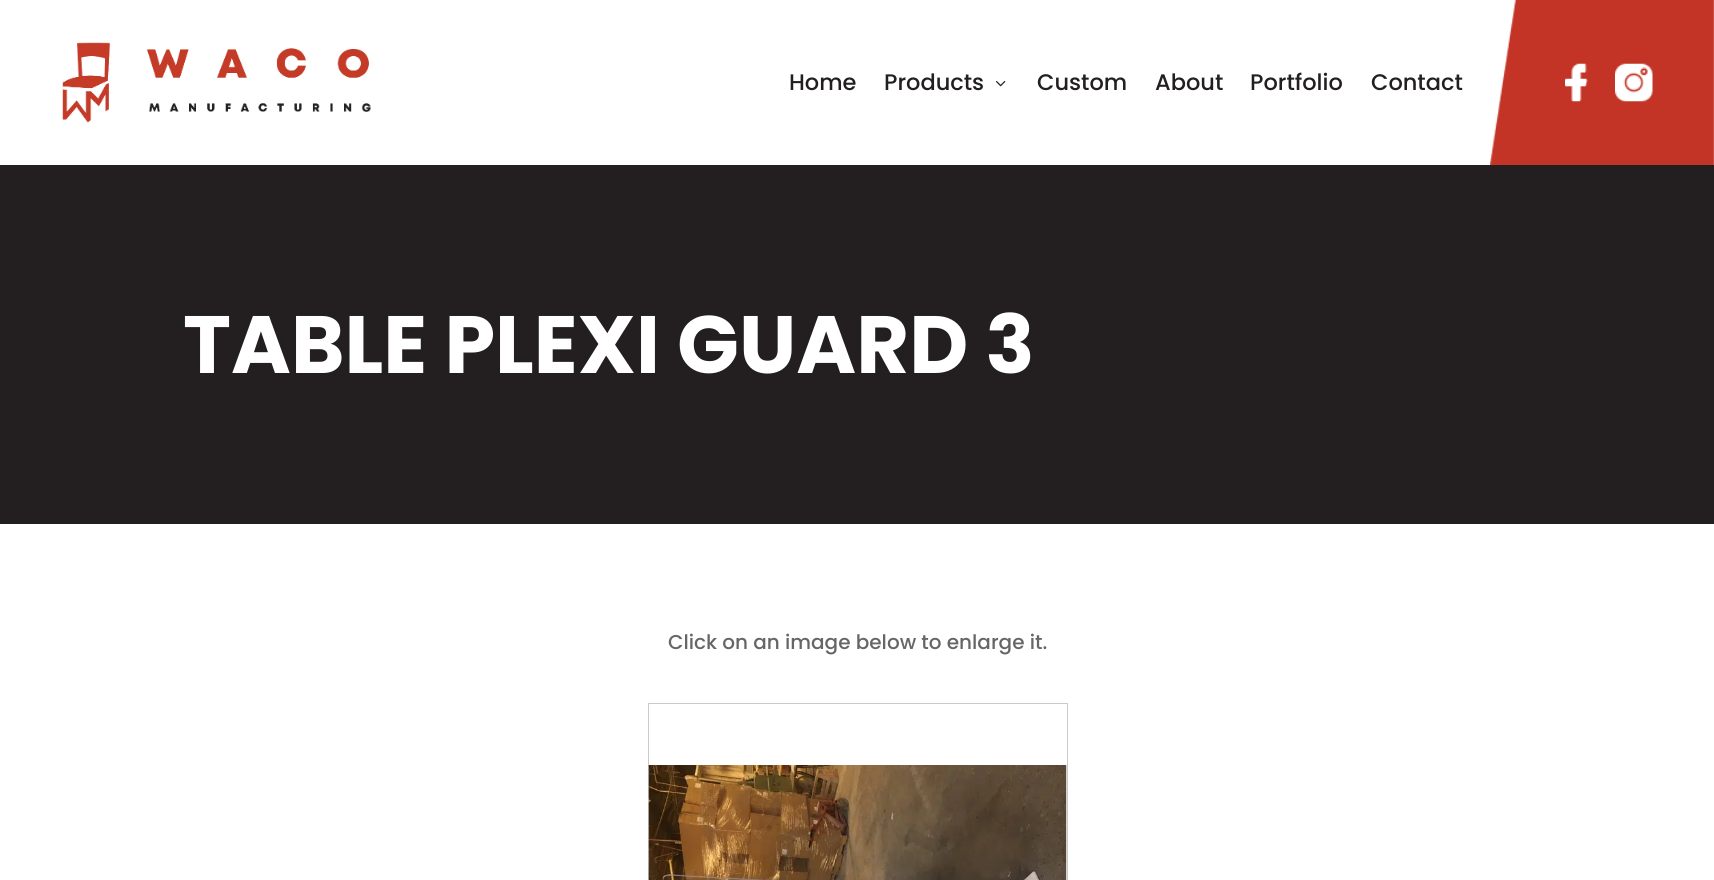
import math
import cairocffi as cairo

surface = cairo.ImageSurface(cairo.FORMAT_RGB24, 1714, 880)
ctx = cairo.Context(surface)
options = cairo.FontOptions()
options.set_hint_metrics(cairo.HINT_METRICS_OFF)
options.set_hint_style(cairo.HINT_STYLE_NONE)
ctx.set_font_options(options)
ctx.set_miter_limit(4)


def rgb(r, g, b):
    ctx.set_source_rgb(r / 255, g / 255, b / 255)


def face(family, size, italic, bold):
    ctx.select_font_face(family, cairo.FONT_SLANT_ITALIC if italic else cairo.FONT_SLANT_NORMAL, cairo.FONT_WEIGHT_BOLD if bold else cairo.FONT_WEIGHT_NORMAL)
    ctx.set_font_size(size)


def label(x, y, s):
    ctx.move_to(x, y)
    ctx.show_text(s)


def rect(x, y, w, h):
    ctx.rectangle(x, y, w, h)
    ctx.fill()


def image(path, x, y, w, h):
    ctx.save()
    ctx.set_source_surface(cairo.ImageSurface.create_from_png(path), x, y)
    ctx.rectangle(x, y, w, h)
    ctx.fill()
    ctx.restore()


rgb(255, 255, 255)
ctx.paint()
image('image0.png', 62, 42, 310, 81)
face('Poppins Medium', 22.5, 0, 0)
rgb(35, 31, 32)
label(789, 90, 'Home')
label(884, 90, 'Products')
image('image1.png', 996, 81, 10, 6)
label(1037, 90, 'Custom')
label(1155, 90, 'About')
label(1250, 90, 'Portfolio')
label(1371, 90, 'Contact')
image('image4.png', 1490, 0, 224, 165)
image('image2.png', 1565, 63, 23, 39)
image('image3.png', 1615, 63, 38, 39)
rect(0, 165, 1714, 359)
face('Poppins', 81.25, 0, 1)
rgb(255, 255, 255)
label(183, 373, 'TABLE PLEXI GUARD 3')
face('Poppins Medium', 20, 0, 0)
rgb(102, 102, 102)
label(668, 649, 'Click on an image below to enlarge it.')
ctx.rectangle(648.5, 703.5, 419, 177)
rgb(202, 202, 202)
ctx.set_line_width(1)
ctx.stroke()
image('image5.png', 648, 765, 419, 115)
surface.write_to_png('render.png')
